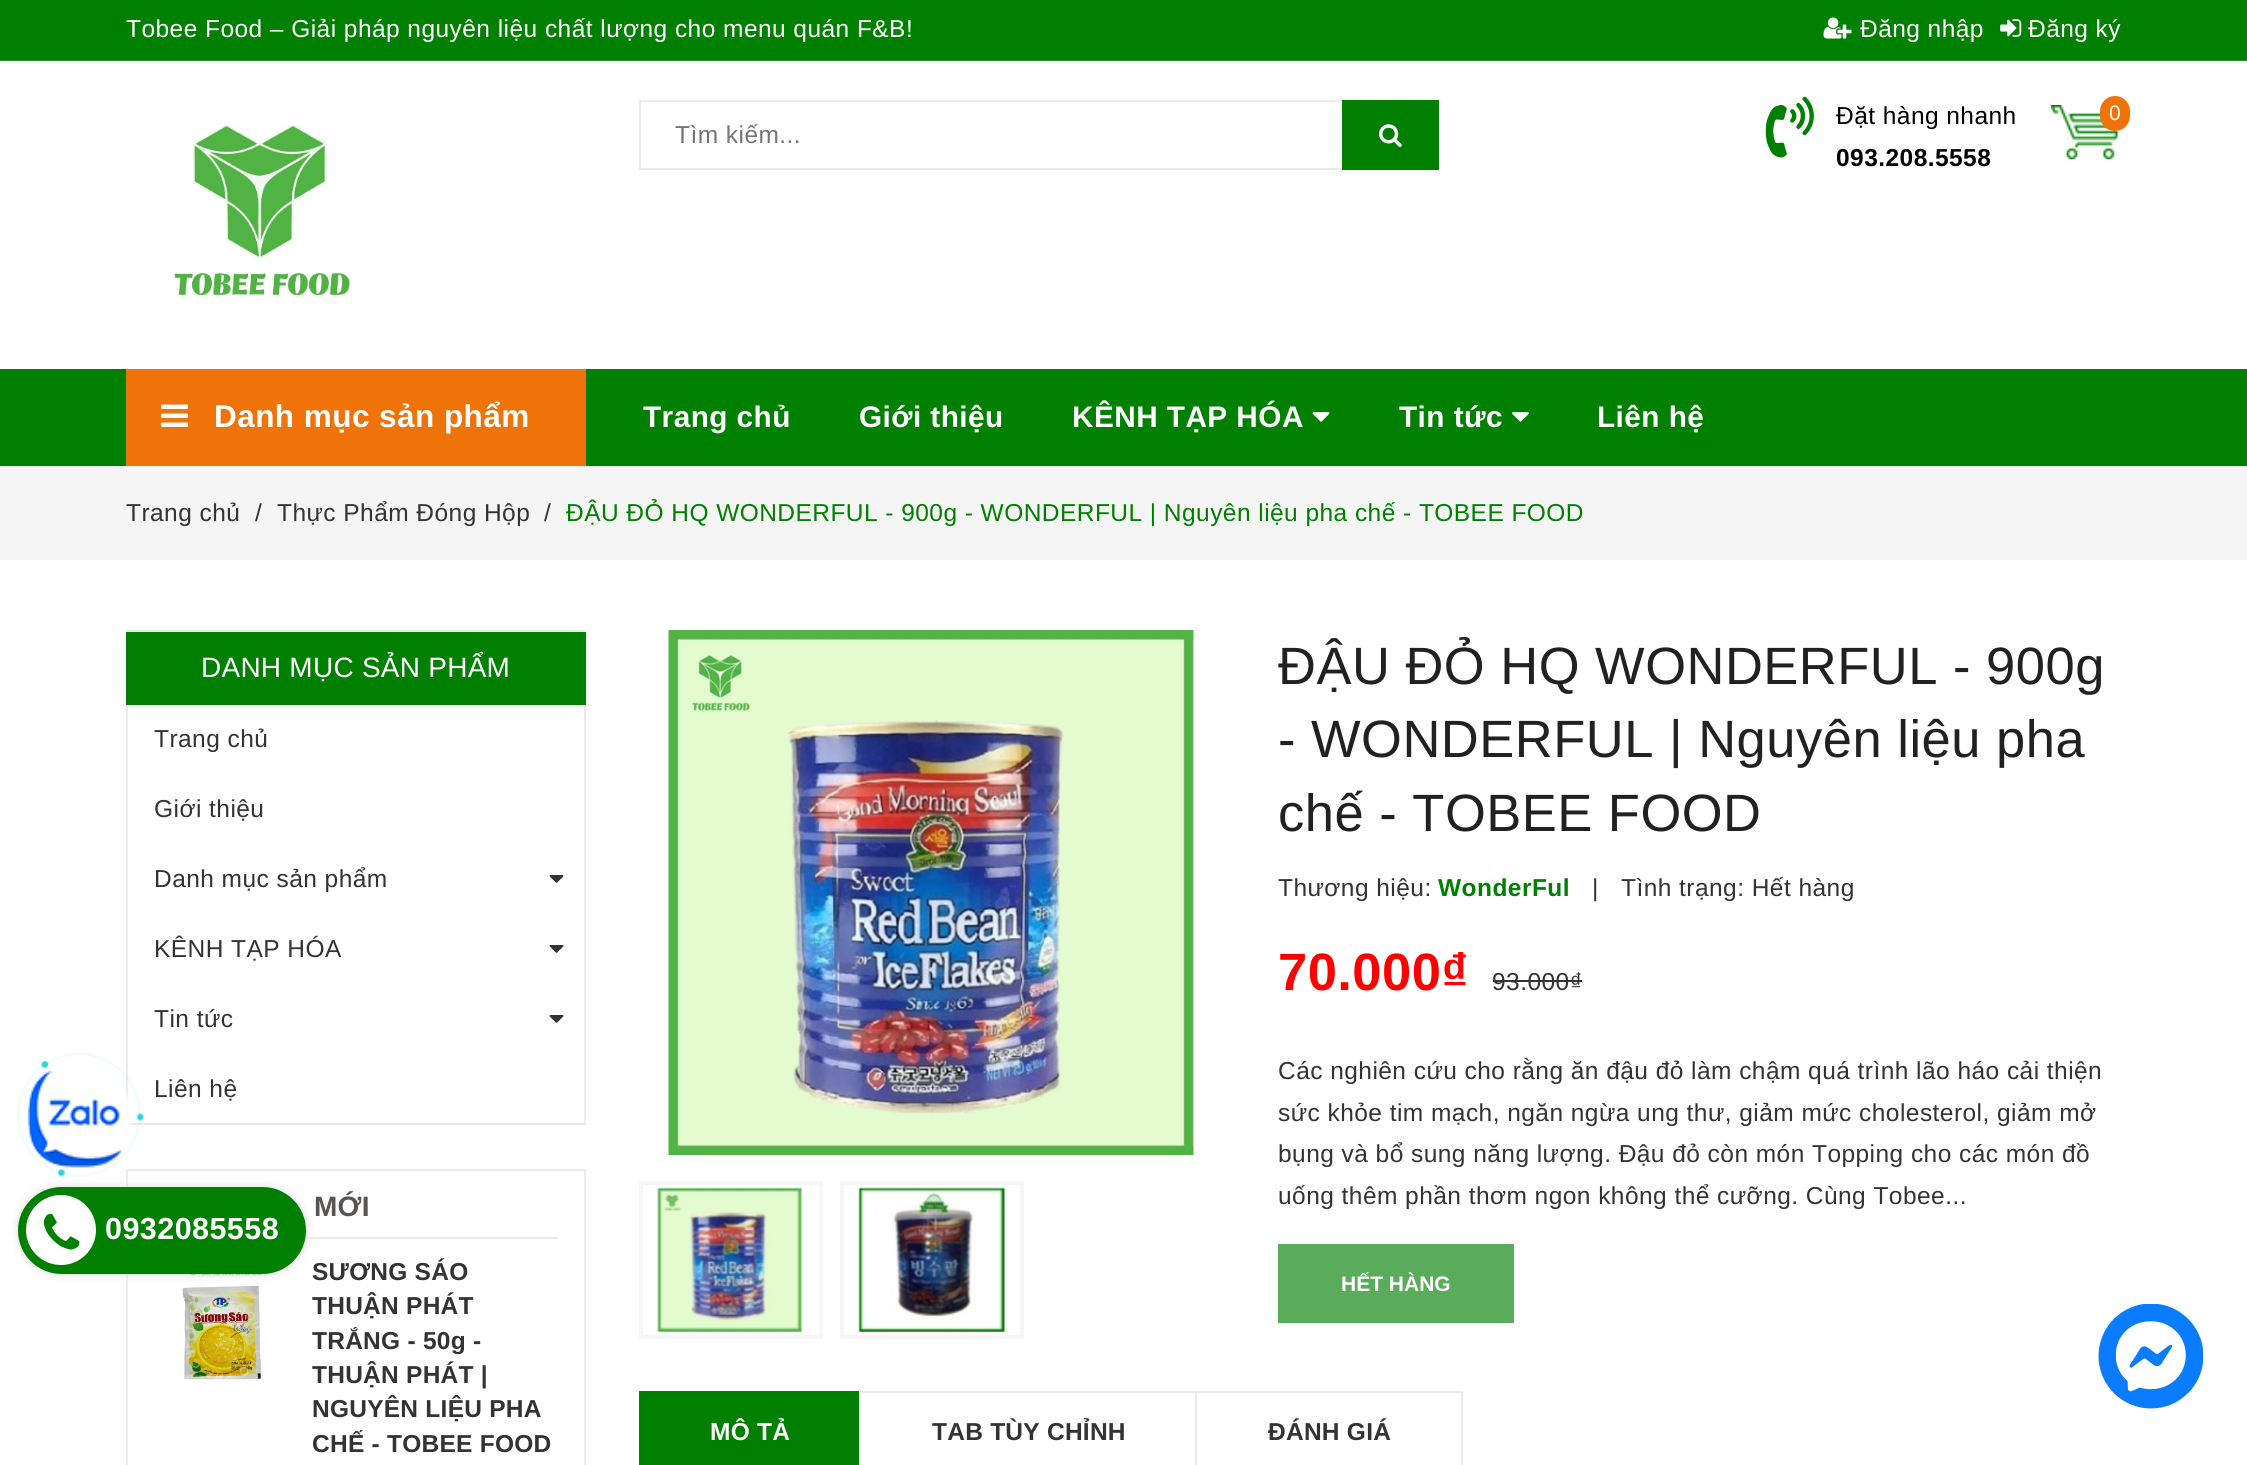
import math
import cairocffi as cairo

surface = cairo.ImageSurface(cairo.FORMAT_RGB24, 2247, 1465)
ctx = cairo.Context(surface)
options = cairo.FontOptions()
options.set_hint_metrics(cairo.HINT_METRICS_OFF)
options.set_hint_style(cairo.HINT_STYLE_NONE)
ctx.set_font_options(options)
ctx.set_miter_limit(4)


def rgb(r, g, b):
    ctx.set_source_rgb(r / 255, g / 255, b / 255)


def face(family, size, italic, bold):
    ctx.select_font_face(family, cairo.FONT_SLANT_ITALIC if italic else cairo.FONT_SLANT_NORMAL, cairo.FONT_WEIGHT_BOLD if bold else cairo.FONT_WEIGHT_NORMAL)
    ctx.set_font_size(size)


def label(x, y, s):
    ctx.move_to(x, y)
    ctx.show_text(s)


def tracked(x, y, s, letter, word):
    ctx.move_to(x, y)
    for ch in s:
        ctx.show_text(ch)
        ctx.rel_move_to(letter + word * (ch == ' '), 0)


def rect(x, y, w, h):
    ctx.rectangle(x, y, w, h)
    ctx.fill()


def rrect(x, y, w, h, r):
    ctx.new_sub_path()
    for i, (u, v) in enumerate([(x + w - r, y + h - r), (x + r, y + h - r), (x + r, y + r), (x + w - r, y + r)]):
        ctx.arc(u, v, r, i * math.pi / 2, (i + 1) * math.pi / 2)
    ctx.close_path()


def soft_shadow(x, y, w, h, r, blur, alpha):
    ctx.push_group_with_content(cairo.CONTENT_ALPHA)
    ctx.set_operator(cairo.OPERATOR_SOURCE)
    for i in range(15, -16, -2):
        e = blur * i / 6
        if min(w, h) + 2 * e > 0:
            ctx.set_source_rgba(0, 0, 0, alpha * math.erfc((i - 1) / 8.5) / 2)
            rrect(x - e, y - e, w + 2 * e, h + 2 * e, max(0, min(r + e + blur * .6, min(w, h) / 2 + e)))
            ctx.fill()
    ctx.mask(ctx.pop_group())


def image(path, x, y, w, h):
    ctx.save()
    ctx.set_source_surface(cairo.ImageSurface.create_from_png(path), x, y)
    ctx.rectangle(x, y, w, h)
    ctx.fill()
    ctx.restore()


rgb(255, 255, 255)
ctx.paint()
rgb(0, 128, 0)
rect(0, 0, 2247, 60)
rgb(43, 150, 43)
rect(0, 60, 2247, 1)
face('Liberation Sans', 24.5, 0, 0)
rgb(255, 255, 255)
tracked(126, 37, 'Tobee Food – Giải pháp nguyên liệu chất lượng cho menu quán F&B!', 0.45, 0)
image('image0.png', 1823, 17, 29, 22)
tracked(1860, 37, 'Đăng nhập', 0.45, 0)
image('image1.png', 2000, 19, 22, 18)
tracked(2028, 37, 'Đăng ký', 0.45, 0)
image('image2.png', 174, 124, 176, 172)
ctx.rectangle(640, 101, 703, 68)
rgb(235, 235, 235)
ctx.stroke()
rgb(117, 117, 117)
tracked(675, 143, 'Tìm kiếm...', 0.45, 0)
rgb(0, 128, 0)
rect(1342, 100, 97, 70)
image('image3.png', 1379, 124, 23, 23)
image('image4.png', 1765, 96, 49, 62)
rgb(0, 0, 0)
tracked(1836, 124, 'Đặt hàng nhanh', 0.45, 0)
face('Liberation Sans', 24.5, 0, 1)
tracked(1836, 166, '093.208.5558', 0.45, 0)
image('image5.png', 2051, 105, 69, 55)
rgb(239, 115, 9)
rrect(2100, 96, 30, 35, 15)
ctx.fill()
face('Liberation Sans', 21, 0, 0)
rgb(255, 255, 255)
tracked(2109, 120, '0', 0.45, 0)
rgb(0, 128, 0)
rect(0, 369, 2247, 97)
rgb(239, 115, 9)
rect(126, 369, 460, 97)
image('image6.png', 161, 404, 27, 23)
face('Liberation Sans', 31.5, 0, 1)
rgb(255, 255, 255)
tracked(214, 427, 'Danh mục sản phẩm', 0.45, 0)
face('Liberation Sans', 29.75, 0, 1)
tracked(643, 427, 'Trang chủ', 0.45, 0)
tracked(859, 427, 'Giới thiệu', 0.45, 0)
tracked(1072, 427, 'KÊNH TẠP HÓA', 0.45, 0)
image('image7.png', 1312, 412, 18, 10)
tracked(1399, 427, 'Tin tức', 0.45, 0)
image('image8.png', 1512, 412, 17, 10)
tracked(1597, 427, 'Liên hệ', 0.45, 0)
rgb(245, 245, 245)
rect(0, 466, 2247, 94)
face('Liberation Sans', 24.5, 0, 0)
rgb(51, 51, 51)
tracked(126, 521, 'Trang chủ', 0.45, 0)
tracked(255, 521, '/', 0.45, 0)
tracked(277, 521, 'Thực Phẩm Đóng Hộp', 0.45, 0)
tracked(544, 521, '/', 0.45, 0)
rgb(0, 128, 0)
tracked(566, 521, 'ĐẬU ĐỎ HQ WONDERFUL - 900g - WONDERFUL | Nguyên liệu pha chế - TOBEE FOOD', 0.45, 0)
ctx.rectangle(127, 631, 458, 493)
rgb(235, 235, 235)
ctx.stroke()
rgb(0, 128, 0)
rect(126, 632, 460, 73)
face('Liberation Sans', 28, 0, 0)
rgb(255, 255, 255)
tracked(201, 677, 'DANH MỤC SẢN PHẨM', 0.25, 0)
face('Liberation Sans', 24.5, 0, 0)
rgb(51, 51, 51)
tracked(154, 747, 'Trang chủ', 0.45, 0)
tracked(154, 817, 'Giới thiệu', 0.45, 0)
tracked(154, 887, 'Danh mục sản phẩm', 0.45, 0)
image('image9.png', 549, 875, 15, 8)
tracked(154, 957, 'KÊNH TẠP HÓA', 0.45, 0)
image('image9.png', 549, 945, 15, 8)
tracked(154, 1027, 'Tin tức', 0.45, 0)
image('image9.png', 549, 1015, 15, 8)
tracked(154, 1097, 'Liên hệ', 0.45, 0)
ctx.rectangle(127, 1170, 458, 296)
rgb(235, 235, 235)
ctx.stroke()
rect(305, 1237, 253, 2)
face('Liberation Sans', 28, 0, 1)
rgb(87, 84, 84)
tracked(314, 1216, 'MỚI', 0.25, 0)
image('image10.png', 182, 1274, 80, 106)
face('Liberation Sans', 24.5, 0, 1)
rgb(51, 51, 51)
tracked(312, 1280, 'SƯƠNG SÁO', 0.25, 0)
ctx.save()
ctx.rectangle(312, 1257, 246, 204)
ctx.clip()
tracked(312, 1314, 'THUẬN PHÁT', 0.25, 0)
tracked(312, 1349, 'TRẮNG - 50g -', 0.25, 0)
tracked(312, 1383, 'THUẬN PHÁT |', 0.25, 0)
ctx.restore()
tracked(312, 1417, 'NGUYÊN LIỆU PHA', 0.25, 0)
tracked(312, 1452, 'CHẾ - TOBEE FOOD', 0.25, 0)
image('image11.png', 668, 630, 526, 525)
ctx.rectangle(641, 1183, 180, 154)
rgb(246, 246, 246)
ctx.set_line_width(4)
ctx.stroke()
image('image12.png', 657, 1187, 145, 145)
ctx.rectangle(842, 1183, 180, 154)
ctx.stroke()
image('image13.png', 858, 1187, 147, 145)
face('Liberation Sans', 52.5, 0, 0)
rgb(33, 33, 33)
tracked(1278, 684, 'ĐẬU ĐỎ HQ WONDERFUL - 900g', 0.5, 0)
tracked(1278, 757, '- WONDERFUL | Nguyên liệu pha', 0.5, 0)
tracked(1278, 831, 'chế - TOBEE FOOD', 0.5, 0)
face('Liberation Sans', 24.5, 0, 0)
rgb(51, 51, 51)
tracked(1278, 896, 'Thương hiệu:', 0.45, 0)
face('Liberation Sans', 24.5, 0, 1)
rgb(0, 128, 0)
tracked(1438, 896, 'WonderFul', 0.45, 0)
face('Liberation Sans', 24.5, 0, 0)
rgb(51, 51, 51)
tracked(1592, 896, '|', 0.45, 0)
tracked(1621, 896, 'Tình trạng: Hết hàng', 0.45, 0)
face('Liberation Sans', 52.5, 0, 1)
rgb(255, 0, 0)
tracked(1278, 990, '70.000₫', 0.45, 0)
face('Liberation Sans', 24.5, 0, 0)
rgb(51, 51, 51)
tracked(1492, 990, '93.000₫', 0.45, 0)
rect(1493, 980, 89, 2)
tracked(1278, 1079, 'Các nghiên cứu cho rằng ăn đậu đỏ làm chậm quá trình lão háo cải thiện', 0.45, 0)
tracked(1278, 1121, 'sức khỏe tim mạch, ngăn ngừa ung thư, giảm mức cholesterol, giảm mở', 0.45, 0)
tracked(1278, 1162, 'bụng và bổ sung năng lượng. Đậu đỏ còn món Topping cho các món đồ', 0.45, 0)
tracked(1278, 1204, 'uống thêm phần thơm ngon không thể cưỡng. Cùng Tobee...', 0.45, 0)
rgb(89, 172, 89)
rect(1278, 1244, 236, 79)
face('Liberation Sans', 21, 0, 1)
rgb(255, 255, 255)
label(1341, 1291, 'HẾT HÀNG')
rgb(0, 128, 0)
rect(639, 1391, 220, 74)
face('Liberation Sans', 24.5, 0, 1)
rgb(255, 255, 255)
tracked(710, 1440, 'MÔ TẢ', 0.25, 0)
rgb(235, 235, 235)
rect(859, 1391, 604, 2)
rect(859, 1391, 2, 74)
rgb(51, 51, 51)
tracked(932, 1440, 'TAB TÙY CHỈNH', 0.25, 0)
rgb(235, 235, 235)
rect(1461, 1391, 2, 74)
rect(1195, 1391, 2, 74)
rgb(51, 51, 51)
tracked(1268, 1440, 'ĐÁNH GIÁ', 0.25, 0)
image('image14.png', 17, 1053, 127, 124)
image('image15.png', 27, 1069, 103, 99)
rgb(221, 221, 221)
soft_shadow(18, 1187, 288, 87, 43.5, 4.5, 1)
rgb(0, 128, 0)
rrect(18, 1187, 288, 87, 43.5)
ctx.fill()
rgb(255, 255, 255)
ctx.arc(61, 1230, 35, 0, 2 * math.pi)
ctx.fill()
image('image16.png', 43, 1213, 37, 37)
face('Liberation Sans', 30.5, 0, 1)
tracked(105, 1239, '0932085558', 0.45, 0)
image('image17.png', 2098, 1304, 105, 105)
surface.write_to_png('render.png')
